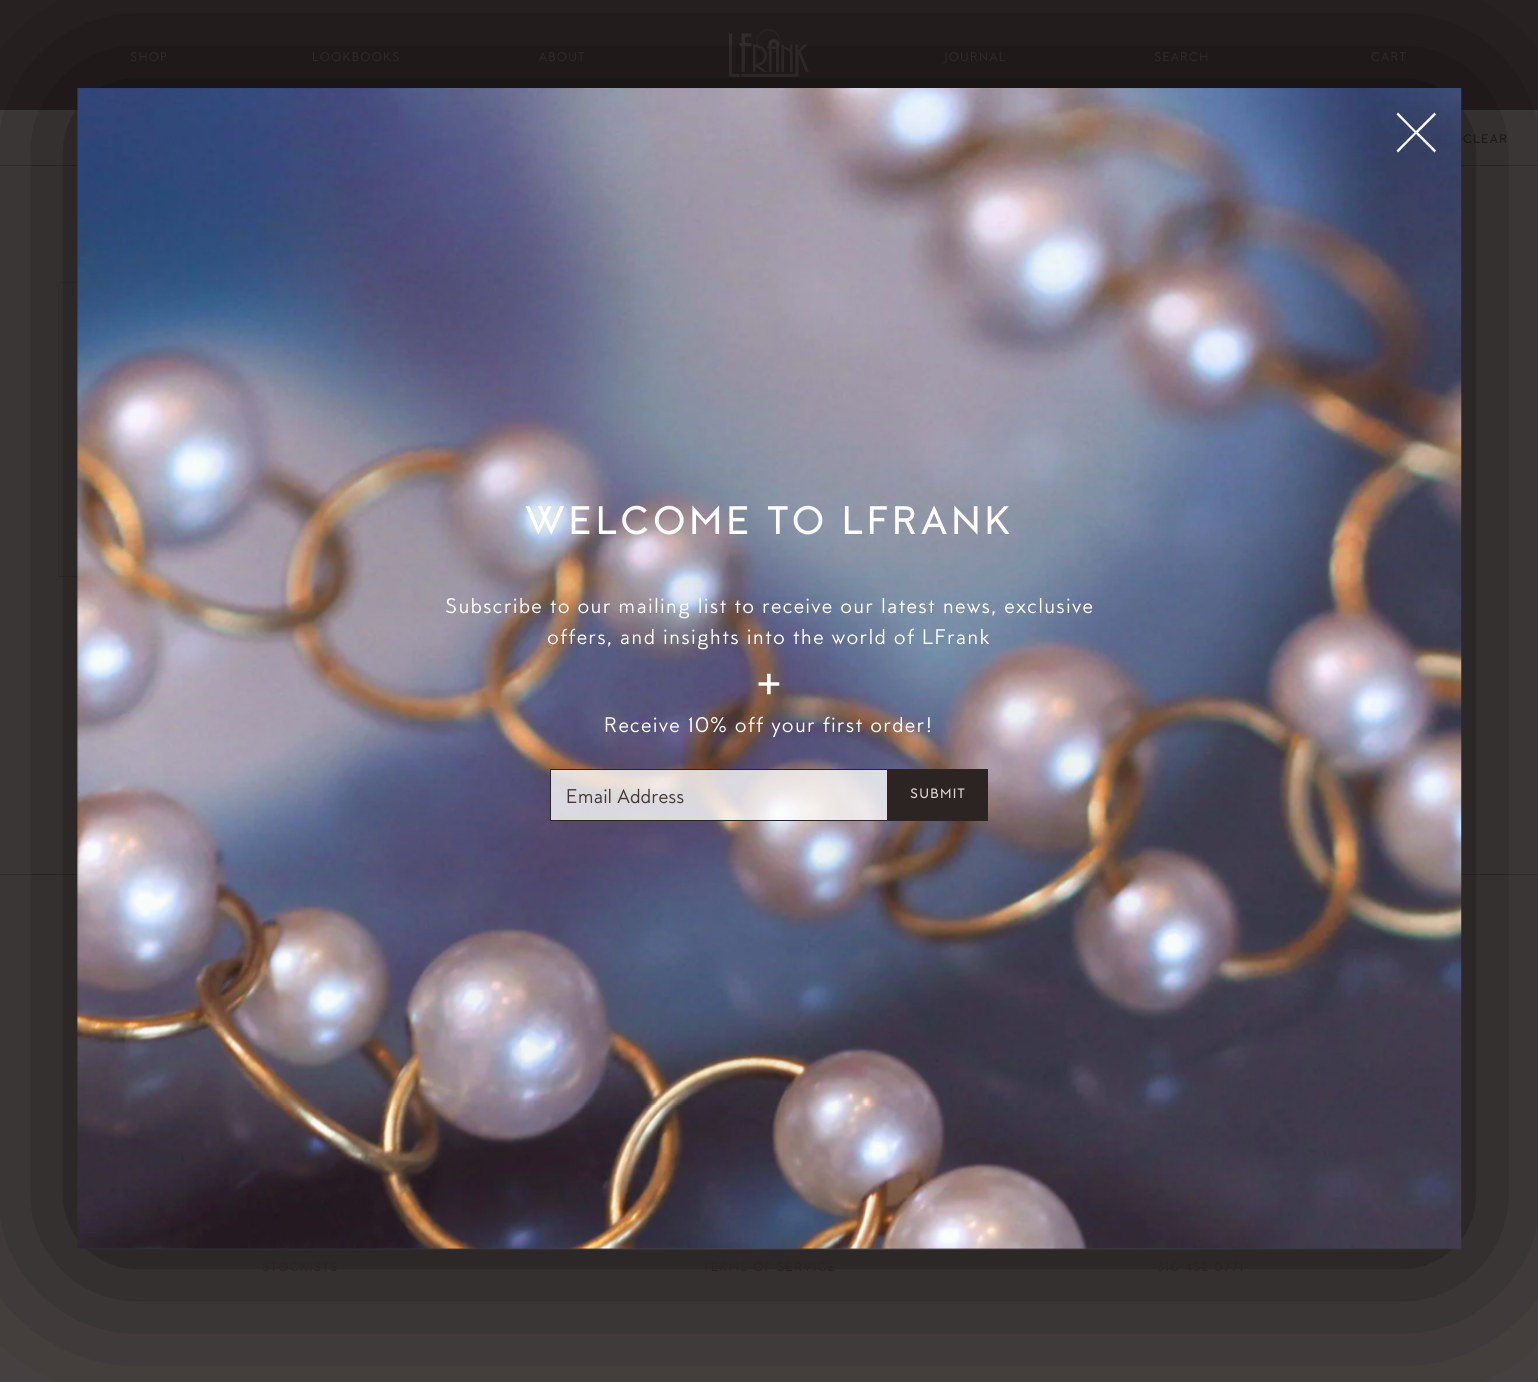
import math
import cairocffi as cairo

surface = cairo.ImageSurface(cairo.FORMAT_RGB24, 1538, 1382)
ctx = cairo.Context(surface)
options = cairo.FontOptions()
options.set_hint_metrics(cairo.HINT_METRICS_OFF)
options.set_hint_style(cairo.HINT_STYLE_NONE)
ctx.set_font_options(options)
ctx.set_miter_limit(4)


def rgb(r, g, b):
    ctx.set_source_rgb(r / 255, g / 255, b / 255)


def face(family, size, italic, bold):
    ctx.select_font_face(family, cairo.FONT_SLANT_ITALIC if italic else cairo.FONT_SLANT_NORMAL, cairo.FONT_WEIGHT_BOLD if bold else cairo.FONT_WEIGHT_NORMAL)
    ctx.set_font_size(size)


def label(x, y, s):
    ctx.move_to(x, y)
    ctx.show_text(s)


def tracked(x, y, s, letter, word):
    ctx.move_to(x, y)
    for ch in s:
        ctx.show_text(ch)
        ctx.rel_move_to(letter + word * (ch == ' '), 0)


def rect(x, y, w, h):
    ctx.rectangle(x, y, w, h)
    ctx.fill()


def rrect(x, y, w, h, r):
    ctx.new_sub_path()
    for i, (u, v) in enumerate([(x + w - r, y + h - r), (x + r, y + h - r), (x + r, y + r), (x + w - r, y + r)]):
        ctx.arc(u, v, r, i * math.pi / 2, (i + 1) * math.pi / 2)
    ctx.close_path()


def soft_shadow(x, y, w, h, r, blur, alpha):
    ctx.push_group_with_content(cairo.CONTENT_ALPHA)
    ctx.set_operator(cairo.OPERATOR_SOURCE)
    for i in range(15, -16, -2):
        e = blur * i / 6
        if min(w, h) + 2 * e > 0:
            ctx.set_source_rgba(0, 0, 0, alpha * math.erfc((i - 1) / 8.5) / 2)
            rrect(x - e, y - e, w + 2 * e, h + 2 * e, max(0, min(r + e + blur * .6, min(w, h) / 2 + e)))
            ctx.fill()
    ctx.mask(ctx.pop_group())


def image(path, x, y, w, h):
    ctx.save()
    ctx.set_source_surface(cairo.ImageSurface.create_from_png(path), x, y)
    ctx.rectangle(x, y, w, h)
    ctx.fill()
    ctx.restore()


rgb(73, 67, 66)
ctx.paint()
rgb(43, 36, 35)
rect(0, 0, 1538, 110)
face('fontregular', 12.5, 0, 0)
rgb(68, 61, 60)
tracked(130, 61, 'SHOP', 1.25, 0)
tracked(312, 61, 'LOOKBOOKS', 1.25, 0)
tracked(539, 61, 'ABOUT', 1.25, 0)
image('image0.png', 729, 29, 80, 48)
tracked(944, 61, 'JOURNAL', 1.25, 0)
tracked(1154, 61, 'SEARCH', 1.25, 0)
tracked(1371, 61, 'CART', 1.25, 0)
rgb(60, 53, 53)
rect(0, 165, 1538, 1)
face('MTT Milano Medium', 12.5, 0, 0)
rgb(43, 36, 35)
tracked(1463, 143, 'CLEAR', 1.25, 0)
image('image1.png', 58, 282, 20, 295)
image('image2.png', 58, 282, 20, 295)
rgb(60, 53, 53)
rect(0, 874, 1538, 1)
rgb(0, 0, 0)
soft_shadow(79, 94, 1381, 1159, 0, 97, 0.79)
rgb(53, 46, 46)
rect(78, 88, 1383, 1161)
image('image3.png', 77, 88, 1385, 1162)
rgb(255, 255, 255)
ctx.new_path()
ctx.move_to(1434.5, 112.5)
ctx.line_to(1416, 131)
ctx.line_to(1398, 112.5)
ctx.line_to(1396.5, 114.5)
ctx.line_to(1414.5, 132.5)
ctx.line_to(1396.5, 150.5)
ctx.line_to(1398, 152.5)
ctx.line_to(1416, 134)
ctx.line_to(1434.5, 152.5)
ctx.line_to(1436, 150.5)
ctx.line_to(1418, 132.5)
ctx.line_to(1436, 114.5)
ctx.close_path()
ctx.fill()
face('MTT Milano Medium', 40, 0, 0)
tracked(525, 534, 'WELCOME TO LFRANK', 3.75, 0)
face('fontregular', 21.25, 0, 0)
tracked(445, 613, 'Subscribe to our mailing list to receive our latest news, exclusive', 1.25, 0)
tracked(547, 644, 'offers, and insights into the world of LFrank', 1.25, 0)
face('fontregular', 50, 0, 0)
tracked(755, 697, '+', 1.25, 0)
face('fontregular', 21.25, 0, 0)
tracked(604, 732, 'Receive 10% off your first order!', 1.25, 0)
ctx.set_source_rgba(1, 1, 1, 0.79)
ctx.rectangle(550.5, 769.5, 337, 51)
ctx.fill_preserve()
rgb(43, 36, 35)
ctx.set_line_width(1)
ctx.stroke()
face('fontregular', 20, 0, 0)
rgb(66, 58, 50)
label(566, 803, 'Email Address')
rgb(43, 36, 35)
rect(888, 769, 100, 52)
face('MTT Milano Medium', 13.75, 0, 0)
rgb(225, 214, 211)
tracked(910, 798, 'SUBMIT', 1.25, 0)
face('MTT Milano Medium', 12.5, 0, 0)
rgb(43, 36, 35)
tracked(262, 1271, 'STOCKISTS', 1.25, 0)
tracked(703, 1271, 'TERMS OF SERVICE', 1.25, 0)
tracked(1157, 1271, '310 452 0771', 1.25, 0)
surface.write_to_png('render.png')
